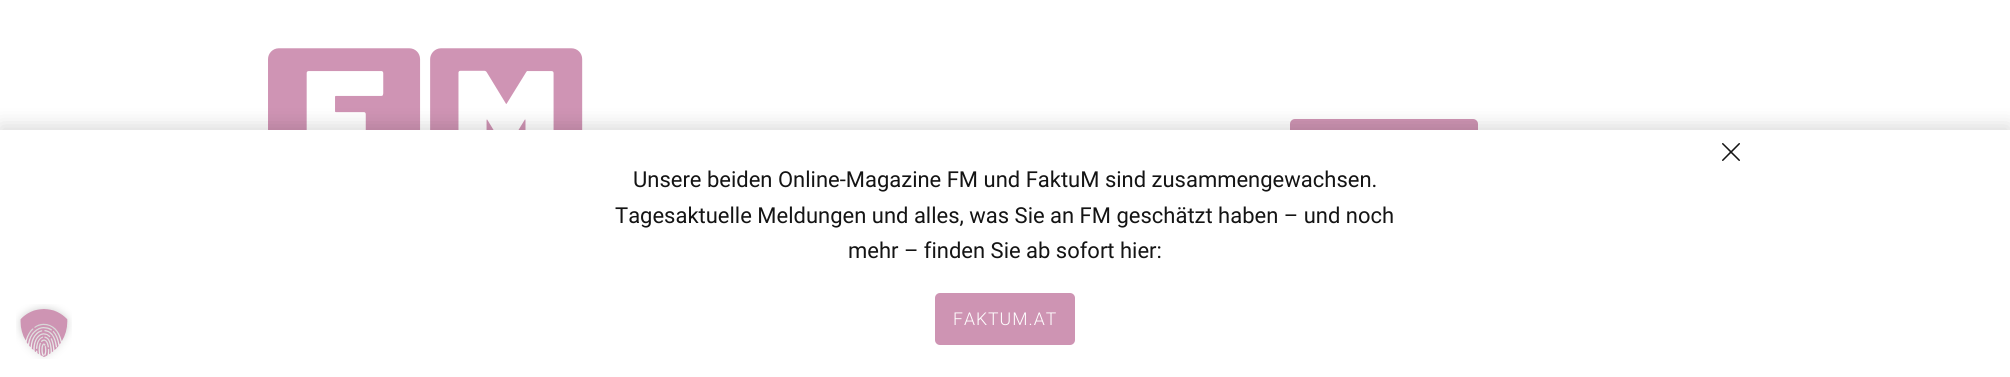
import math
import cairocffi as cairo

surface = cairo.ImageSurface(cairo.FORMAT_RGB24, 2010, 377)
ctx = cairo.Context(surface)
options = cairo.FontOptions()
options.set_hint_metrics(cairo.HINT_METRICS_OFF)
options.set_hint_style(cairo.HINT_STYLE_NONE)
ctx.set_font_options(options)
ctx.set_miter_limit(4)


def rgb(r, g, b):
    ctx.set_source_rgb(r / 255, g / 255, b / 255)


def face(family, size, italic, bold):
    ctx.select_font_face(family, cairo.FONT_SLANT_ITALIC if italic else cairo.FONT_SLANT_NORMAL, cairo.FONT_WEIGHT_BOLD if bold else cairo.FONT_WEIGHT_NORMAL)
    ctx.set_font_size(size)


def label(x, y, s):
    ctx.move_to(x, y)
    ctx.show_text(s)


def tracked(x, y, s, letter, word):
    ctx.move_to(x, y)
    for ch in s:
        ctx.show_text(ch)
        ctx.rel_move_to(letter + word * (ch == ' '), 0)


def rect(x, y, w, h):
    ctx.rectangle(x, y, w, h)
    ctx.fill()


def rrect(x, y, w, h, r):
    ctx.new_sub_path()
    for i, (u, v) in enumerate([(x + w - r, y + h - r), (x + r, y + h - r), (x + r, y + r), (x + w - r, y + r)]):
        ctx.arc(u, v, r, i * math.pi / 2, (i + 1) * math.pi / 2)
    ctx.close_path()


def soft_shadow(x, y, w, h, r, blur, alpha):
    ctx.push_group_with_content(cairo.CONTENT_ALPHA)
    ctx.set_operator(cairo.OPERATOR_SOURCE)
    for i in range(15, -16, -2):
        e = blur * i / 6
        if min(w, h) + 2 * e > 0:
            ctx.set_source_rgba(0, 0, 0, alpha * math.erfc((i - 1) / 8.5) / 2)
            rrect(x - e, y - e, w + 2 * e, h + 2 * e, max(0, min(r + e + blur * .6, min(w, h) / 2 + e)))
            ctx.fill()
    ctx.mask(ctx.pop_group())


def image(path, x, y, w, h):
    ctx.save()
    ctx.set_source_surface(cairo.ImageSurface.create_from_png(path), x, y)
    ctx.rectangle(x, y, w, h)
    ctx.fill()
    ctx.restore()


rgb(255, 255, 255)
ctx.paint()
image('image0.png', 268, 48, 315, 82)
rgb(206, 148, 179)
rrect(1290, 119, 188, 52, 5)
ctx.fill()
rgb(0, 0, 0)
soft_shadow(0, 126, 2010, 247, 0, 10, 0.15)
rgb(255, 255, 255)
rect(0, 130, 2010, 247)
image('image1.png', 1722, 143, 18, 18)
face('Roboto', 22, 0, 0)
rgb(20, 20, 20)
label(633, 187, 'Unsere beiden Online-Magazine FM und FaktuM sind zusammengewachsen.')
label(615, 223, 'Tagesaktuelle Meldungen und alles, was Sie an FM geschätzt haben – und noch')
label(848, 258, 'mehr – finden Sie ab sofort hier:')
rgb(206, 148, 179)
rrect(935, 293, 140, 52, 5)
ctx.fill()
face('Roboto Light', 18, 0, 0)
rgb(255, 255, 255)
tracked(953, 325, 'FAKTUM.AT', 1, 0)
image('image2.png', 16, 304, 56, 55)
surface.write_to_png('render.png')
